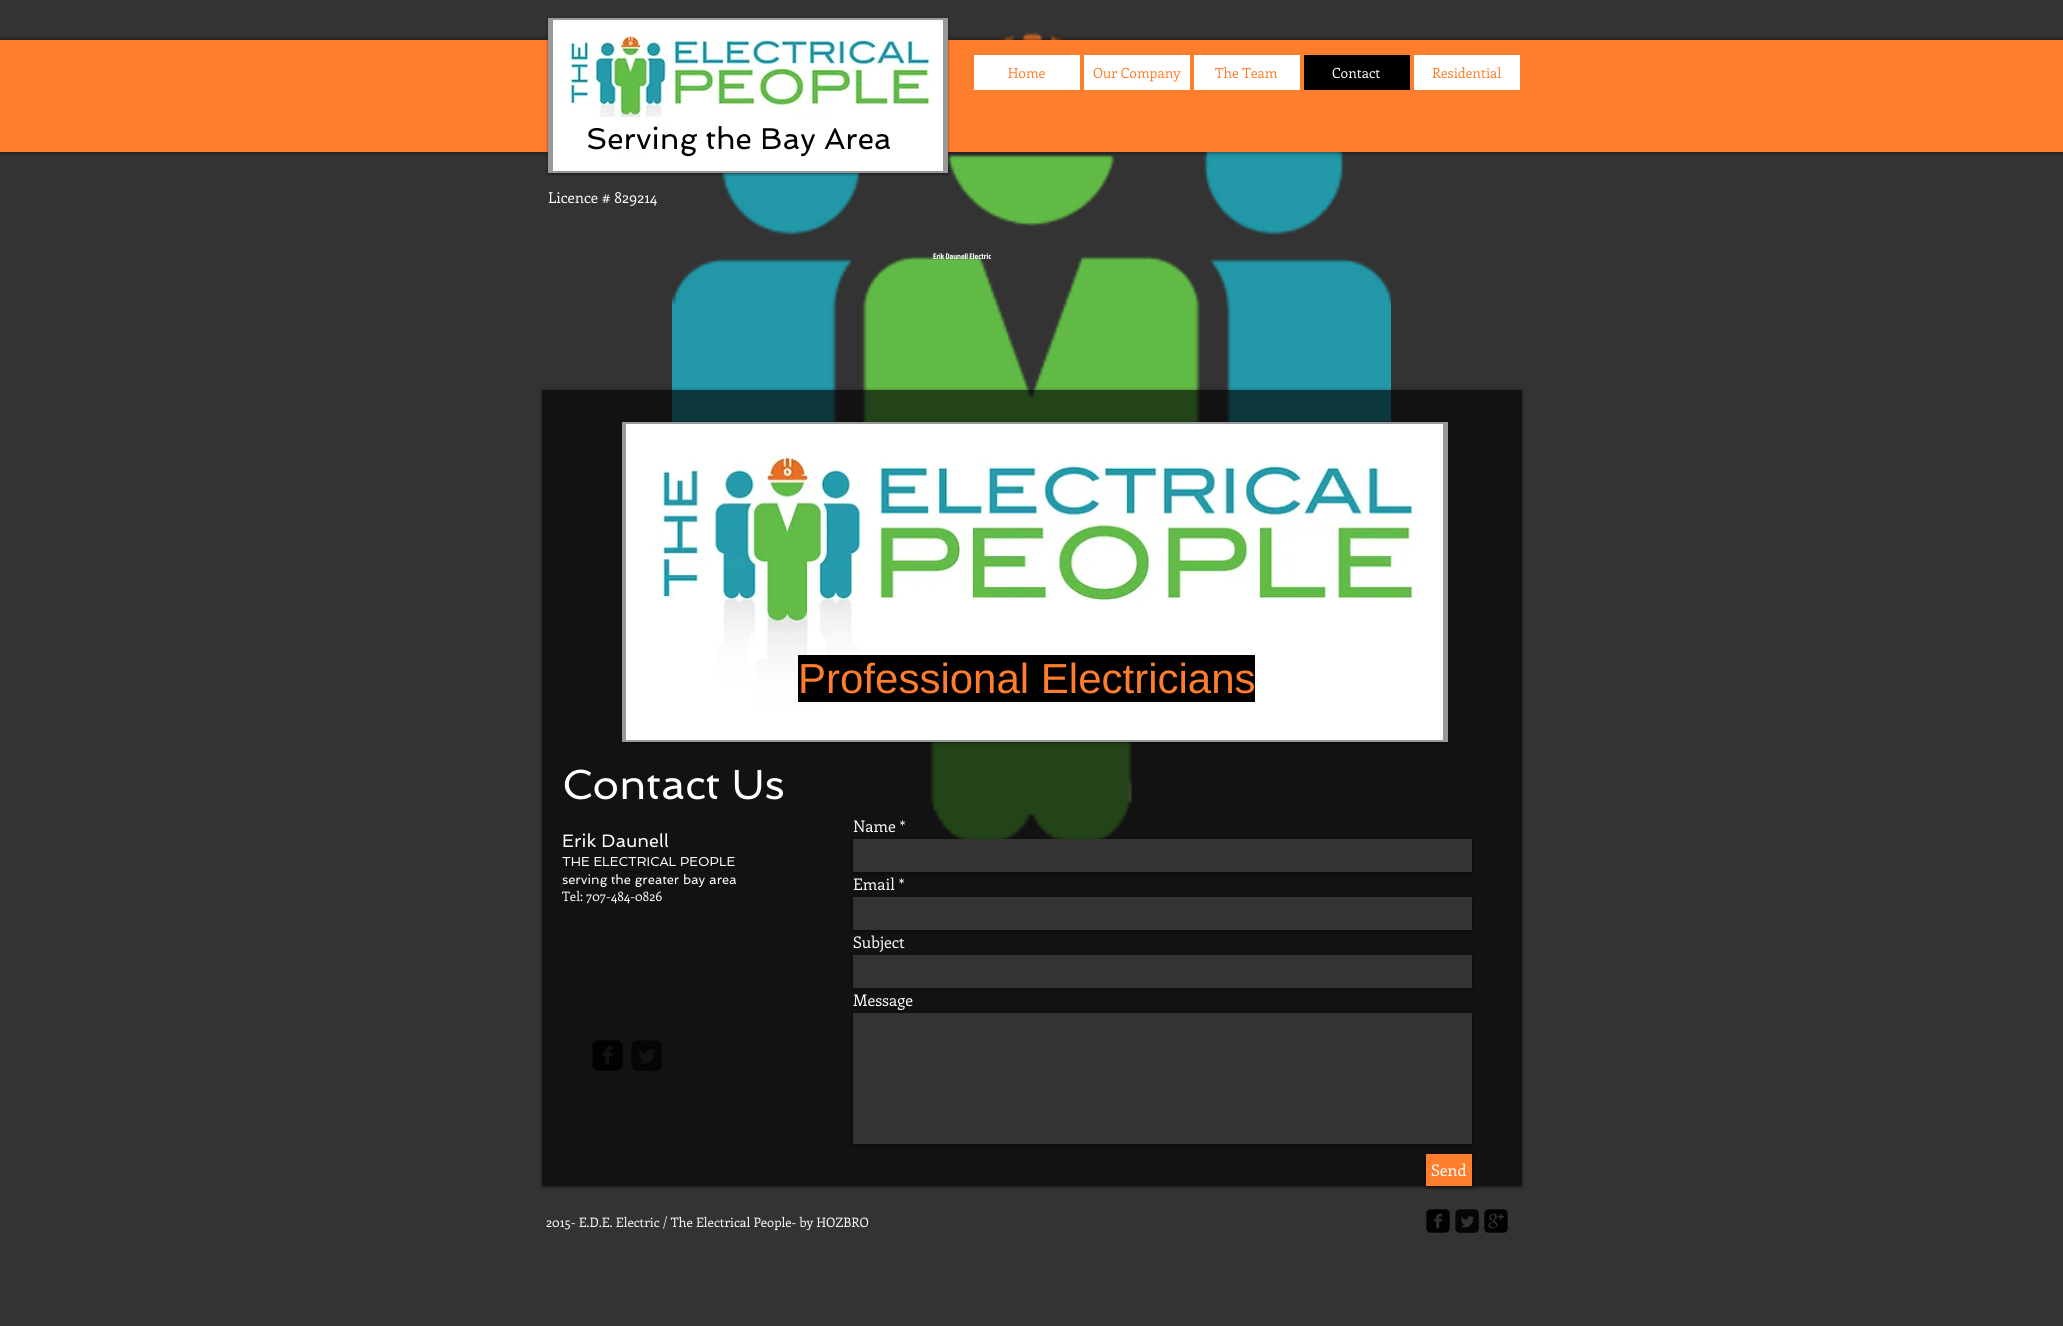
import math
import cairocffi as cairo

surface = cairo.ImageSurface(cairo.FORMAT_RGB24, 2063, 1326)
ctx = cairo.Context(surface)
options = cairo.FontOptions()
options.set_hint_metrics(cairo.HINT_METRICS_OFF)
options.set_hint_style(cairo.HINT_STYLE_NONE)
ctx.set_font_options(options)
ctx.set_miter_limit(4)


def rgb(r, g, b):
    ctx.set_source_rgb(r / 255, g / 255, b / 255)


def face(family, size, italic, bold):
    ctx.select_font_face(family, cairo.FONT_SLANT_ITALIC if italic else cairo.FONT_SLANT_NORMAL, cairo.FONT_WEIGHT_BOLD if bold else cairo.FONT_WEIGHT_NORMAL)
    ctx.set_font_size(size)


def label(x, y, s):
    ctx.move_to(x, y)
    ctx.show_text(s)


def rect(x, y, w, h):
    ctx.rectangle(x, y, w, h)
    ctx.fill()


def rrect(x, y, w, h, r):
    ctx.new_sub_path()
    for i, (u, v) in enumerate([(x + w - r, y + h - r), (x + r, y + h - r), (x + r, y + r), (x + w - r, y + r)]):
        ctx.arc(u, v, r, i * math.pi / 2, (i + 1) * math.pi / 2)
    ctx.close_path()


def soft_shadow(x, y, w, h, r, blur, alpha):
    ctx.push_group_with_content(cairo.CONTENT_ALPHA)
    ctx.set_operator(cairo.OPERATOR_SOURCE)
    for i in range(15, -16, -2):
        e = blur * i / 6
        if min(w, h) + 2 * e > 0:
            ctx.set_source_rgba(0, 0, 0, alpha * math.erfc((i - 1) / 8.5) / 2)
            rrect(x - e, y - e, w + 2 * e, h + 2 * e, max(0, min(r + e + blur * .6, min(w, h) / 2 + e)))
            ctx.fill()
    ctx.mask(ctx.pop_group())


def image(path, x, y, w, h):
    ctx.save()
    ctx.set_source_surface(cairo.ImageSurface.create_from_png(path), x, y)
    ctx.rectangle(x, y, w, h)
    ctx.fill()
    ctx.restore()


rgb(51, 51, 51)
ctx.paint()
image('image0.png', 672, 32, 719, 807)
rgb(0, 0, 0)
soft_shadow(0, 40, 2063, 112, 0, 2.5, 0.7)
rgb(255, 126, 45)
rect(0, 40, 2063, 112)
rgb(0, 0, 0)
soft_shadow(548, 19, 400, 155, 0, 1.5, 0.5)
rgb(153, 153, 153)
rect(548, 18, 400, 155)
image('image1.png', 553, 20, 390, 151)
rgb(255, 255, 255)
rect(974, 55, 106, 35)
face('Enriqueta', 14, 0, 0)
rgb(255, 126, 45)
label(1008, 78, 'Home')
rgb(255, 255, 255)
rect(1084, 55, 106, 35)
rgb(255, 126, 45)
label(1093, 78, 'Our Company')
rgb(255, 255, 255)
rect(1194, 55, 106, 35)
rgb(255, 126, 45)
label(1215, 78, 'The Team')
rgb(0, 0, 0)
rect(1304, 55, 106, 35)
rgb(255, 255, 255)
label(1332, 78, 'Contact')
rect(1414, 55, 106, 35)
rgb(255, 126, 45)
label(1432, 78, 'Residential')
rgb(255, 255, 255)
rect(597, 117, 66, 27)
face('Spinnaker', 30, 0, 0)
rgb(0, 0, 0)
label(586, 149, 'Serving the Bay Area')
face('Enriqueta', 15, 0, 0)
rgb(255, 255, 255)
label(548, 203, 'Licence # 829214')
face('Jockey One', 8, 0, 0)
label(933, 259, 'Erik Daunell Electric')
ctx.save()
ctx.set_fill_rule(cairo.FILL_RULE_EVEN_ODD)
ctx.new_path()
ctx.move_to(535, 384)
ctx.line_to(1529, 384)
ctx.line_to(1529, 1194)
ctx.line_to(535, 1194)
ctx.close_path()
ctx.move_to(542, 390)
ctx.line_to(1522, 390)
ctx.line_to(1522, 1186)
ctx.line_to(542, 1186)
ctx.close_path()
ctx.clip()
rgb(0, 0, 0)
soft_shadow(542, 391, 980, 796, 0, 2, 0.6)
ctx.restore()
ctx.set_source_rgba(0, 0, 0, 0.64)
rect(542, 390, 980, 796)
rgb(0, 0, 0)
soft_shadow(622, 423, 826, 320, 0, 1.5, 0.5)
rgb(153, 153, 153)
rect(622, 422, 826, 320)
image('image2.png', 626, 424, 817, 316)
rgb(0, 0, 0)
rect(798, 655, 457, 47)
face('Liberation Sans', 42, 0, 0)
rgb(255, 126, 45)
label(798, 693, 'Professional Electricians')
face('Spinnaker', 42, 0, 0)
rgb(255, 255, 255)
label(562, 799, 'Contact Us')
face('Spinnaker', 18, 0, 0)
label(562, 847, 'Erik Daunell')
face('Spinnaker', 13, 0, 0)
label(562, 866, 'THE ELECTRICAL PEOPLE')
label(562, 884, 'serving the greater bay area')
face('Enriqueta', 13, 0, 0)
label(562, 901, 'Tel: 707-484-0826')
face('Enriqueta', 16, 0, 0)
label(853, 832, 'Name *')
rgb(0, 0, 0)
soft_shadow(853, 840, 619, 33, 0, 2, 0.6)
rgb(51, 51, 51)
rect(853, 839, 619, 33)
rgb(255, 255, 255)
label(853, 890, 'Email *')
rgb(0, 0, 0)
soft_shadow(853, 898, 619, 33, 0, 2, 0.6)
rgb(51, 51, 51)
rect(853, 897, 619, 33)
rgb(255, 255, 255)
label(853, 948, 'Subject')
rgb(0, 0, 0)
soft_shadow(853, 956, 619, 33, 0, 2, 0.6)
rgb(51, 51, 51)
rect(853, 955, 619, 33)
rgb(255, 255, 255)
label(853, 1006, 'Message')
rgb(0, 0, 0)
soft_shadow(853, 1014, 619, 131, 0, 2, 0.6)
rgb(51, 51, 51)
rect(853, 1013, 619, 131)
rgb(0, 0, 0)
soft_shadow(1426, 1155, 46, 32, 0, 2, 0.6)
rgb(255, 126, 45)
rect(1426, 1154, 46, 32)
rgb(255, 255, 255)
label(1431, 1176, 'Send')
image('image3.png', 592, 1040, 31, 31)
image('image4.png', 631, 1040, 31, 31)
face('Enriqueta', 13, 0, 0)
label(546, 1227, '2015- E.D.E. Electric / The Electrical People- by HOZBRO')
image('image5.png', 1426, 1209, 24, 24)
image('image6.png', 1455, 1209, 24, 24)
image('image7.png', 1484, 1209, 24, 24)
surface.write_to_png('render.png')
